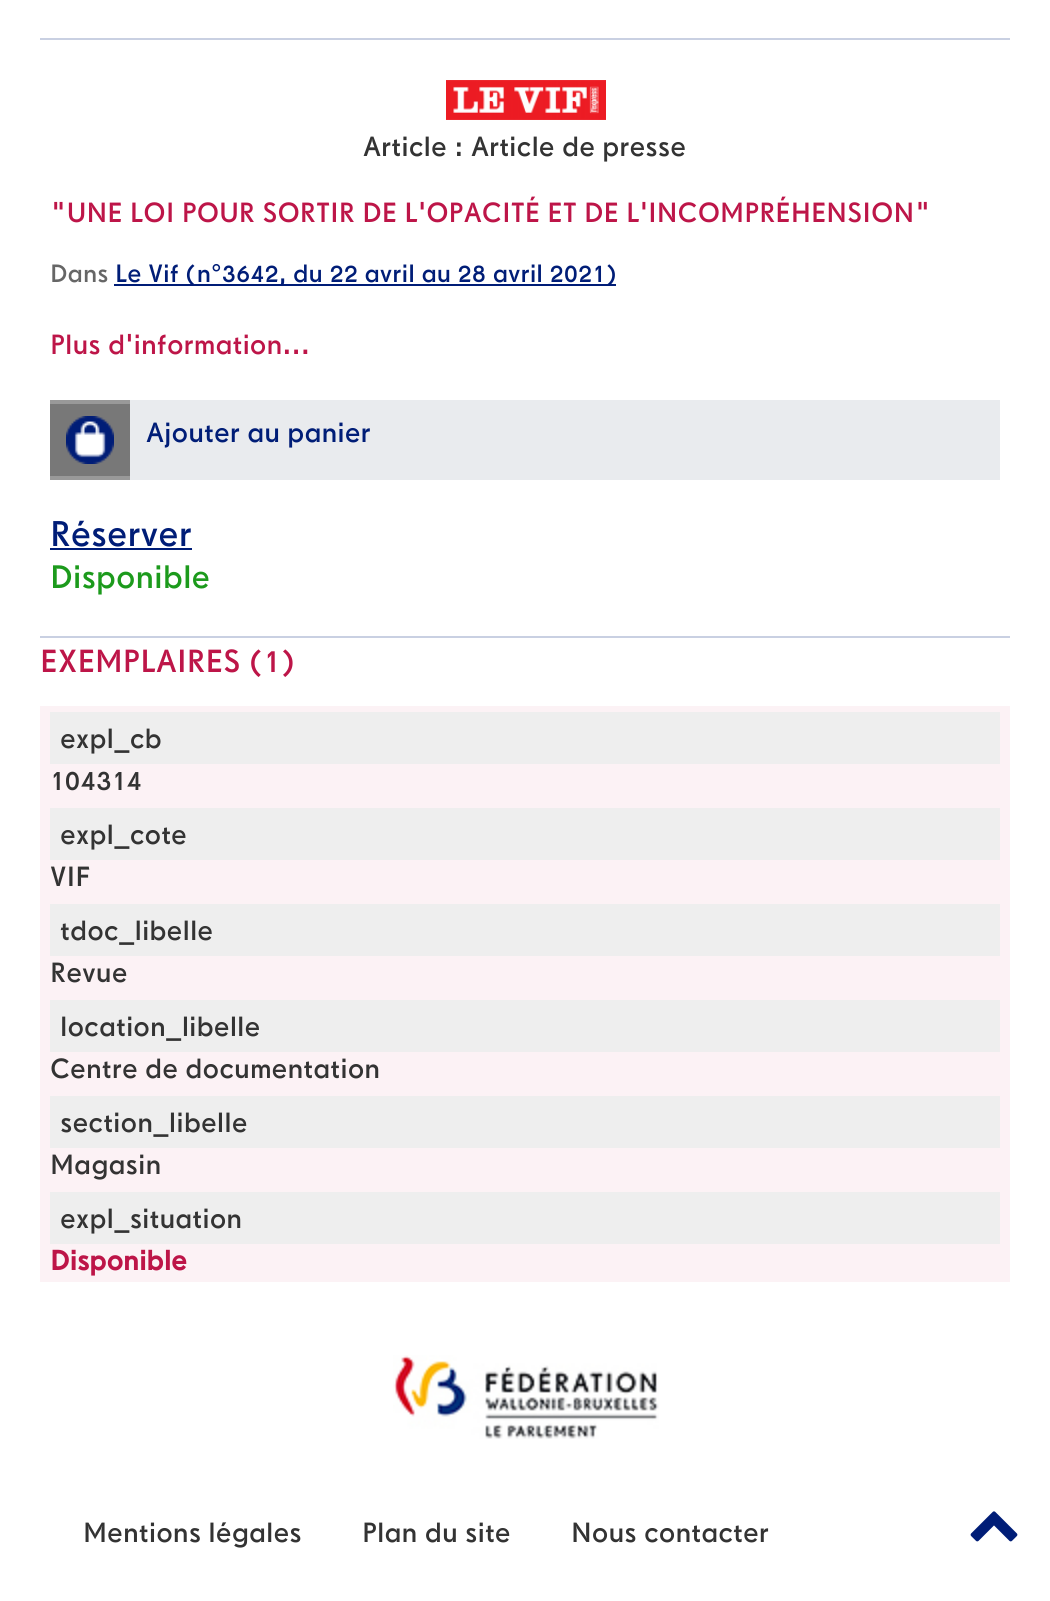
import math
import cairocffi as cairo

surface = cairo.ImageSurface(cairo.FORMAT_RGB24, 1050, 1601)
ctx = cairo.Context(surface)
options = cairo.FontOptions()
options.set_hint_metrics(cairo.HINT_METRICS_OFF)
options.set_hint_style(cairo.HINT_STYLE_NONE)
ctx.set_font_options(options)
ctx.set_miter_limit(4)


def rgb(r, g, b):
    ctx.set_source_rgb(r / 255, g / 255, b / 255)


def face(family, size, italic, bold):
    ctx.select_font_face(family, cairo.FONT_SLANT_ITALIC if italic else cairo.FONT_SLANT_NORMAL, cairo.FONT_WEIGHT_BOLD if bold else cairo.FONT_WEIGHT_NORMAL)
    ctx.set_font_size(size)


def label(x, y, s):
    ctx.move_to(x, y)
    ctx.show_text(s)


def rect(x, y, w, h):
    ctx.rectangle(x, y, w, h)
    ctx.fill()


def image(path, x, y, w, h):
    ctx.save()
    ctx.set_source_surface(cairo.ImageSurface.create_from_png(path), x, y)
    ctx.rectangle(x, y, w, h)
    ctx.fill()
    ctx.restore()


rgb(255, 255, 255)
ctx.paint()
rgb(201, 208, 226)
rect(40, 38, 970, 2)
rect(40, 636, 970, 2)
image('image0.png', 446, 80, 160, 40)
face('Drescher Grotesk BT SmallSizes', 28, 0, 0)
rgb(51, 51, 51)
label(363, 156, 'Article : Article de presse')
rgb(189, 21, 72)
label(50, 222, '"UNE LOI POUR SORTIR DE L\'OPACITÉ ET DE L\'INCOMPRÉHENSION"')
face('Drescher Grotesk BT SmallSizes', 25.25, 0, 0)
rgb(102, 102, 102)
label(50, 282, 'Dans')
rgb(0, 29, 119)
rect(114, 284, 502, 2)
label(115, 282, 'Le Vif (n°3642, du 22 avril au 28 avril 2021)')
face('Drescher Grotesk BT SmallSizes', 28, 0, 0)
rgb(189, 21, 72)
label(50, 354, 'Plus d\'information...')
rgb(153, 153, 153)
rect(50, 400, 80, 80)
rgb(120, 120, 120)
rect(50, 404, 80, 72)
image('image1.png', 66, 416, 48, 48)
rgb(233, 235, 238)
rect(130, 400, 870, 80)
rgb(0, 29, 119)
label(146, 442, 'Ajouter au panier')
face('Drescher Grotesk BT SmallSizes', 36, 0, 0)
label(50, 546, 'Réserver')
rect(50, 548, 142, 2)
face('Drescher Grotesk BT SmallSizes', 32.75, 0, 0)
rgb(28, 154, 28)
label(50, 588, 'Disponible')
face('Drescher Grotesk BT SmallSizes', 32.25, 0, 0)
rgb(189, 21, 72)
label(40, 672, 'EXEMPLAIRES (1)')
rgb(252, 242, 245)
rect(40, 706, 970, 576)
rgb(238, 238, 238)
rect(50, 712, 950, 52)
face('Drescher Grotesk BT SmallSizes', 28, 0, 0)
rgb(51, 51, 51)
label(60, 748, 'expl_cb')
label(50, 790, '104314')
rgb(238, 238, 238)
rect(50, 808, 950, 52)
rgb(51, 51, 51)
label(60, 844, 'expl_cote')
label(50, 886, 'VIF')
rgb(238, 238, 238)
rect(50, 904, 950, 52)
rgb(51, 51, 51)
label(60, 940, 'tdoc_libelle')
label(50, 982, 'Revue')
rgb(238, 238, 238)
rect(50, 1000, 950, 52)
rgb(51, 51, 51)
label(60, 1036, 'location_libelle')
label(50, 1078, 'Centre de documentation')
rgb(238, 238, 238)
rect(50, 1096, 950, 52)
rgb(51, 51, 51)
label(60, 1132, 'section_libelle')
label(50, 1174, 'Magasin')
rgb(238, 238, 238)
rect(50, 1192, 950, 52)
rgb(51, 51, 51)
label(60, 1228, 'expl_situation')
face('Drescher Grotesk BT SmallSizes', 28, 0, 1)
rgb(189, 21, 72)
label(50, 1270, 'Disponible')
image('image2.png', 393, 1355, 266, 84)
face('Drescher Grotesk BT SmallSizes', 28, 0, 0)
rgb(51, 51, 51)
label(83, 1542, 'Mentions légales')
label(362, 1542, 'Plan du site')
label(571, 1542, 'Nous contacter')
image('image3.png', 970, 1511, 48, 31)
surface.write_to_png('render.png')
